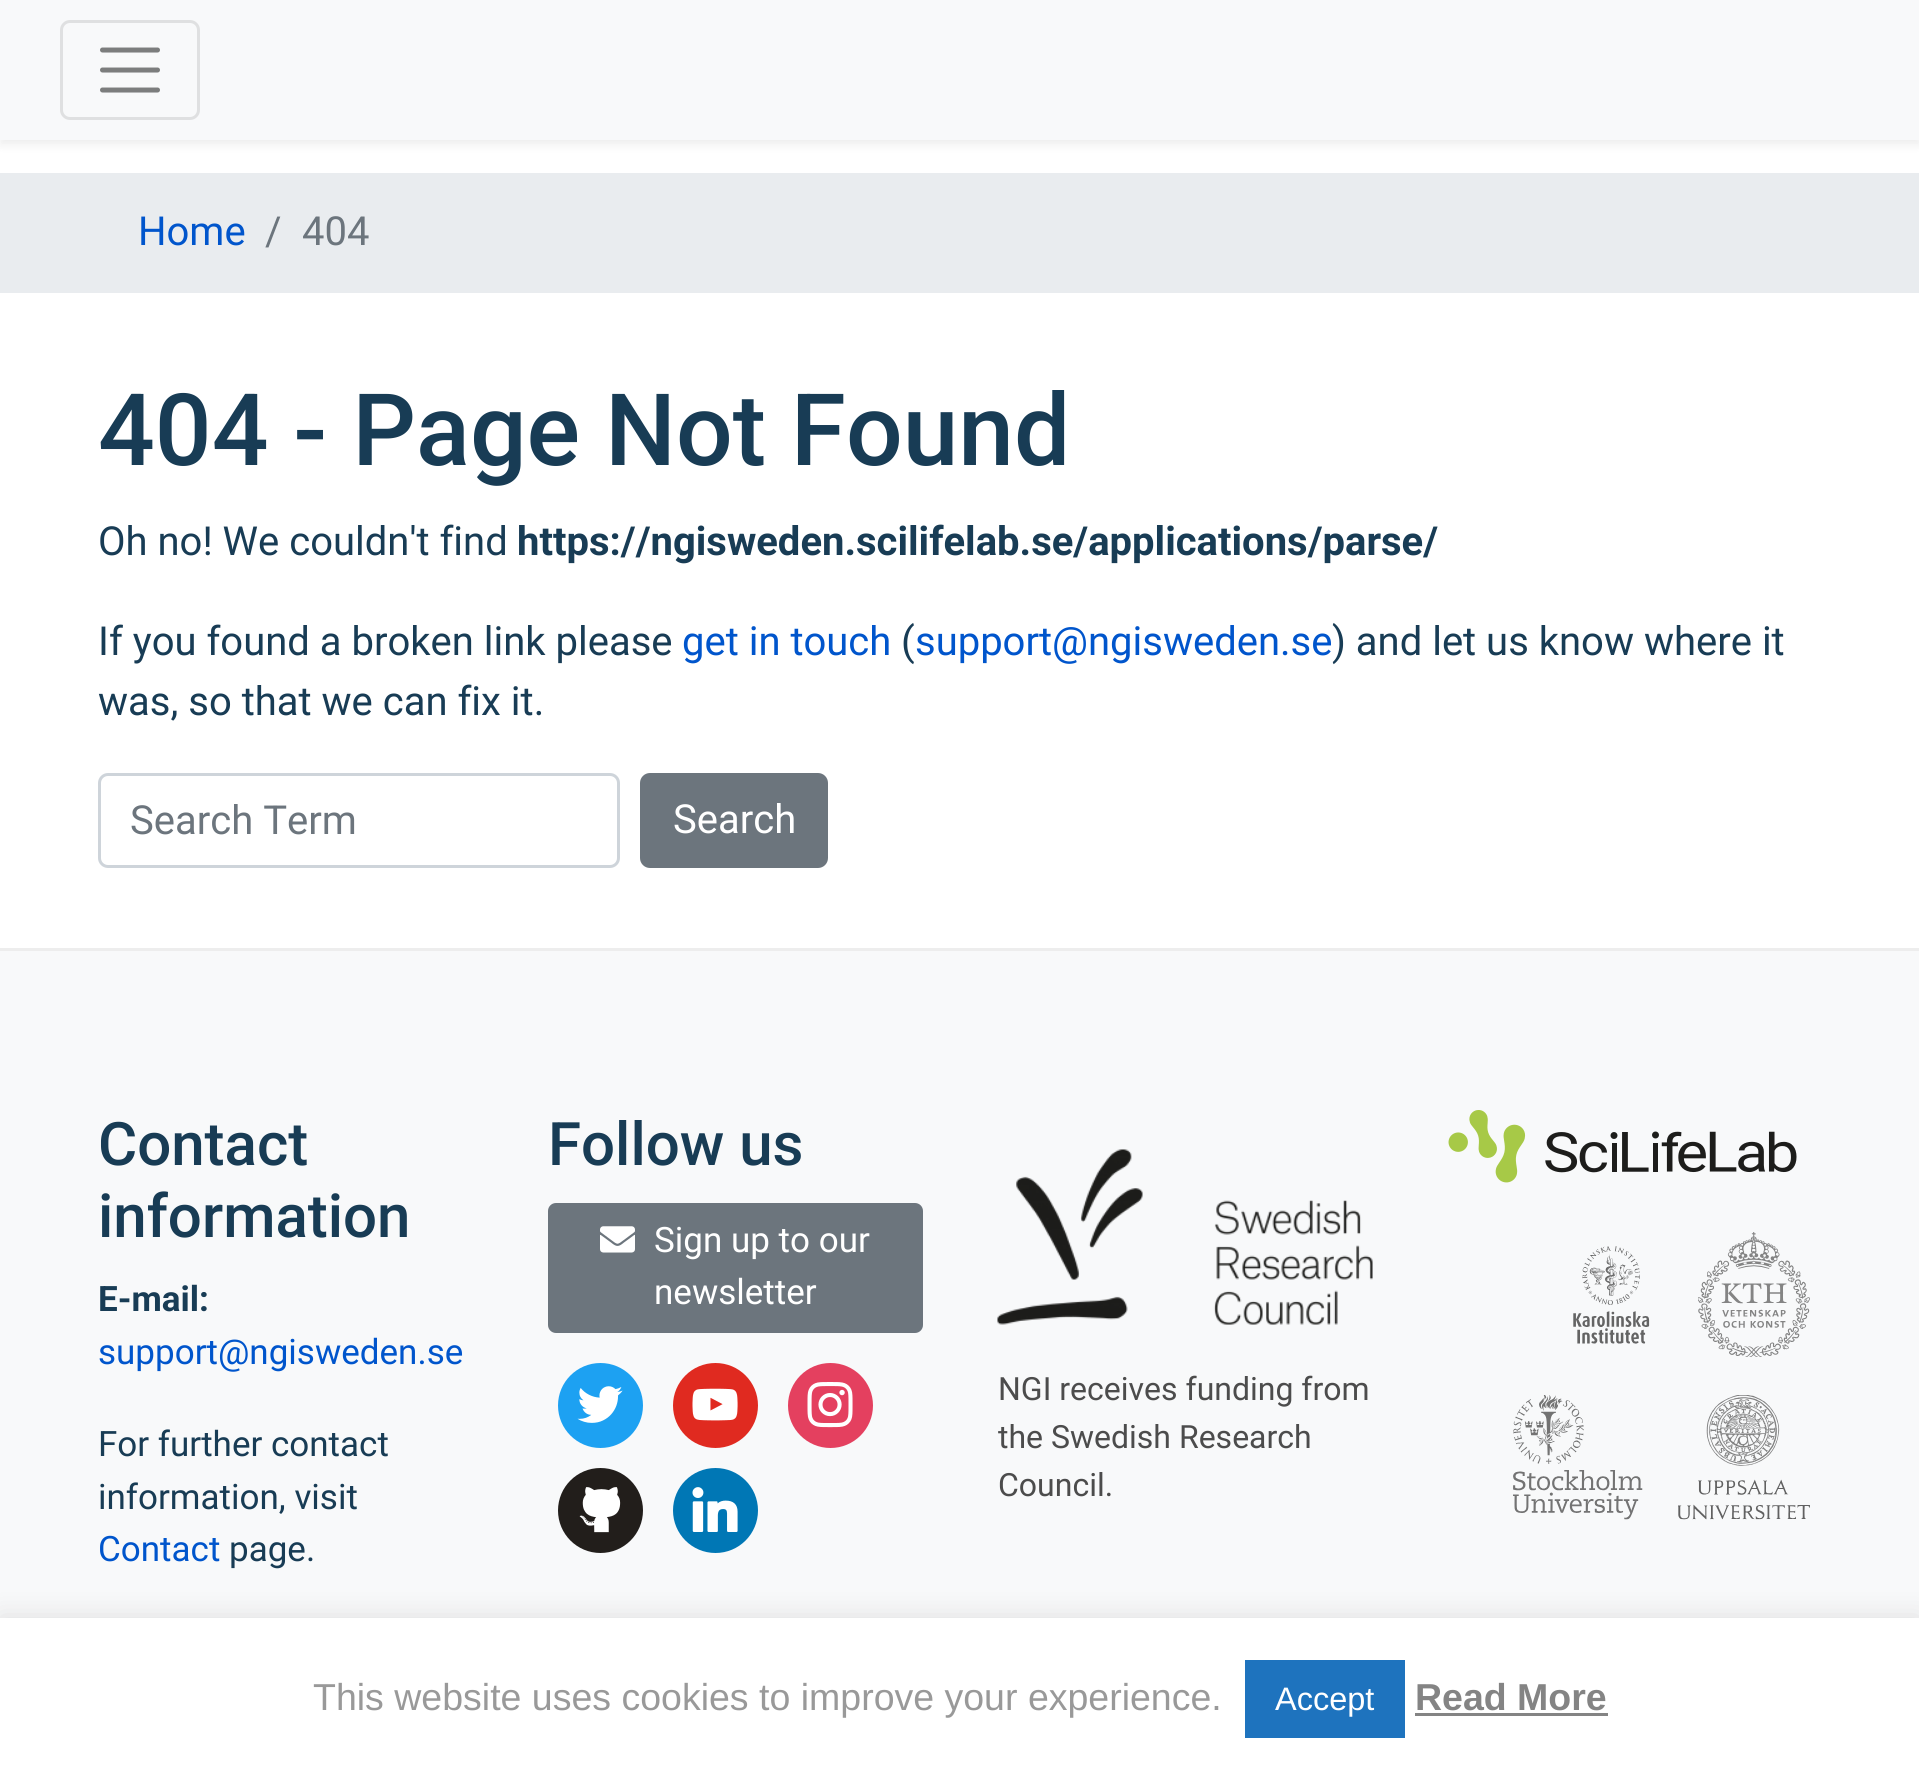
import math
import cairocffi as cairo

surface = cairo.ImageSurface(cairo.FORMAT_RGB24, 1919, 1767)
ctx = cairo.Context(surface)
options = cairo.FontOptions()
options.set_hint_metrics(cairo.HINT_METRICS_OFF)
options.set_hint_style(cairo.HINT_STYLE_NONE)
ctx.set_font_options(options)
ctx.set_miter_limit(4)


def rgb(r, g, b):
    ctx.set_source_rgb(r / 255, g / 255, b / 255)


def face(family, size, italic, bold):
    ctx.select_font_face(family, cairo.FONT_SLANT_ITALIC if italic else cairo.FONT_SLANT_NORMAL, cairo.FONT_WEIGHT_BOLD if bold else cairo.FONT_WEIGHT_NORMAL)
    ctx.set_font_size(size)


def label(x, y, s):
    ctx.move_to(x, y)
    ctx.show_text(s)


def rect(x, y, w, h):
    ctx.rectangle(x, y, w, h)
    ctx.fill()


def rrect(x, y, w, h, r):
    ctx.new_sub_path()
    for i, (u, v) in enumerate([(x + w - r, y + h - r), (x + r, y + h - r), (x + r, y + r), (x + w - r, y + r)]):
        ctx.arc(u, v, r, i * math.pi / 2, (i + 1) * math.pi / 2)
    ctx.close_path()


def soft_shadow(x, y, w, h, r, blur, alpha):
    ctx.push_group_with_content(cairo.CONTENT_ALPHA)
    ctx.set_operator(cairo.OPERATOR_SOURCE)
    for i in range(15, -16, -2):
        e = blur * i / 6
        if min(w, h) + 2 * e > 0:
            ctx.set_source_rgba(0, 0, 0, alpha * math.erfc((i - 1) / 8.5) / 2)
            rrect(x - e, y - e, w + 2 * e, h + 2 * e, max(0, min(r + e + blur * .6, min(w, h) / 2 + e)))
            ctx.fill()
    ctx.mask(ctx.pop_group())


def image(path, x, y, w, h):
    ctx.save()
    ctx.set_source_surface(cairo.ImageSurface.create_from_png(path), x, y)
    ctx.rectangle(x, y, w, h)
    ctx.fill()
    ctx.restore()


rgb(255, 255, 255)
ctx.paint()
rgb(0, 0, 0)
soft_shadow(0, 5, 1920, 140, 0, 5, 0.07)
rgb(248, 249, 250)
rect(0, 0, 1919, 140)
rrect(61.5, 21.5, 137, 97, 8.5)
rgb(223, 224, 225)
ctx.set_line_width(3)
ctx.stroke()
ctx.new_path()
ctx.move_to(102.5, 50)
ctx.line_to(157.5, 50)
ctx.move_to(102.5, 70)
ctx.line_to(157.5, 70)
ctx.move_to(102.5, 90)
ctx.line_to(157.5, 90)
rgb(124, 125, 125)
ctx.set_line_width(5)
ctx.set_line_cap(cairo.LINE_CAP_ROUND)
ctx.stroke()
rgb(233, 236, 239)
rect(0, 173, 1919, 120)
face('Roboto', 40, 0, 0)
rgb(0, 85, 204)
label(138, 245, 'Home')
rgb(108, 117, 125)
label(265, 245, '/')
label(302, 245, '404')
face('Roboto Medium', 100, 0, 0)
rgb(24, 60, 85)
label(98, 465, '404 - Page Not Found')
face('Roboto', 40, 0, 0)
label(98, 555, 'Oh no! We couldn\'t find')
face('Roboto', 40, 0, 1)
label(517, 555, 'https://ngisweden.scilifelab.se/applications/parse/')
face('Roboto', 40, 0, 0)
label(98, 655, 'If you found a broken link please')
rgb(0, 85, 204)
label(682, 655, 'get in touch')
rgb(24, 60, 85)
label(901, 655, '(')
rgb(0, 85, 204)
label(915, 655, 'support@ngisweden.se')
rgb(24, 60, 85)
label(1332, 655, ') and let us know where it')
label(98, 715, 'was, so that we can fix it.')
rrect(99.5, 774.5, 519, 92, 8.5)
rgb(206, 212, 218)
ctx.set_line_width(3)
ctx.set_line_cap(cairo.LINE_CAP_BUTT)
ctx.stroke()
rgb(108, 117, 125)
label(130, 834, 'Search Term')
rrect(641.5, 774.5, 185, 92, 8.5)
ctx.fill_preserve()
ctx.stroke()
rgb(255, 255, 255)
label(673, 833, 'Search')
rgb(248, 249, 250)
rect(0, 951, 1919, 667)
rgb(237, 237, 237)
rect(0, 948, 1919, 3)
face('Roboto Medium', 60, 0, 0)
rgb(24, 60, 85)
label(98, 1165, 'Contact')
label(98, 1237, 'information')
face('Roboto', 35, 0, 1)
label(98, 1311, 'E-mail:')
face('Roboto', 35, 0, 0)
rgb(0, 85, 204)
label(98, 1364, 'support@ngisweden.se')
rgb(24, 60, 85)
label(98, 1456, 'For further contact')
label(98, 1509, 'information, visit')
rgb(0, 85, 204)
label(98, 1561, 'Contact')
rgb(24, 60, 85)
label(229, 1561, 'page.')
face('Roboto Medium', 60, 0, 0)
label(548, 1165, 'Follow us')
rgb(108, 117, 125)
rrect(549.5, 1204.5, 372, 127, 6.5)
ctx.fill_preserve()
ctx.stroke()
image('image0.png', 600, 1226, 35, 27)
face('Roboto', 35, 0, 0)
rgb(255, 255, 255)
label(654, 1252, 'Sign up to our')
label(654, 1304, 'newsletter')
rgb(29, 161, 242)
ctx.new_path()
ctx.arc(600.5, 1405.5, 42.5, 0, 2 * math.pi)
ctx.fill()
image('image1.png', 577, 1386, 46, 37)
rgb(224, 42, 32)
ctx.arc(715.5, 1405.5, 42.5, 0, 2 * math.pi)
ctx.fill()
image('image2.png', 692, 1388, 46, 33)
rgb(228, 64, 95)
ctx.arc(830.5, 1405.5, 42.5, 0, 2 * math.pi)
ctx.fill()
image('image3.png', 807, 1382, 46, 46)
rgb(34, 30, 27)
ctx.arc(600.5, 1510.5, 42.5, 0, 2 * math.pi)
ctx.fill()
image('image4.png', 579, 1487, 42, 46)
rgb(0, 119, 181)
ctx.arc(715.5, 1510.5, 42.5, 0, 2 * math.pi)
ctx.fill()
image('image5.png', 692, 1487, 46, 45)
image('image6.png', 997, 1149, 376, 176)
face('Roboto', 32, 0, 0)
rgb(76, 76, 76)
label(998, 1400, 'NGI receives funding from')
label(998, 1448, 'the Swedish Research')
label(998, 1496, 'Council.')
image('image7.png', 1448, 1110, 349, 73)
image('image8.png', 1573, 1246, 77, 98)
image('image9.png', 1698, 1232, 112, 125)
image('image10.png', 1513, 1395, 130, 125)
image('image11.png', 1678, 1395, 132, 125)
rgb(172, 171, 171)
soft_shadow(0, 1615, 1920, 150, 0, 12.5, 0.3)
rgb(255, 255, 255)
rect(0, 1618, 1919, 149)
face('Liberation Sans', 37.5, 0, 0)
rgb(153, 153, 153)
label(313, 1710, 'This website uses cookies to improve your experience.')
rgb(30, 115, 190)
rect(1245, 1660, 160, 78)
face('Liberation Sans', 32.5, 0, 0)
rgb(255, 255, 255)
label(1275, 1710, 'Accept')
face('Liberation Sans', 37.5, 0, 1)
rgb(132, 132, 132)
label(1415, 1710, 'Read More')
rect(1415, 1713, 193, 3)
surface.write_to_png('render.png')
